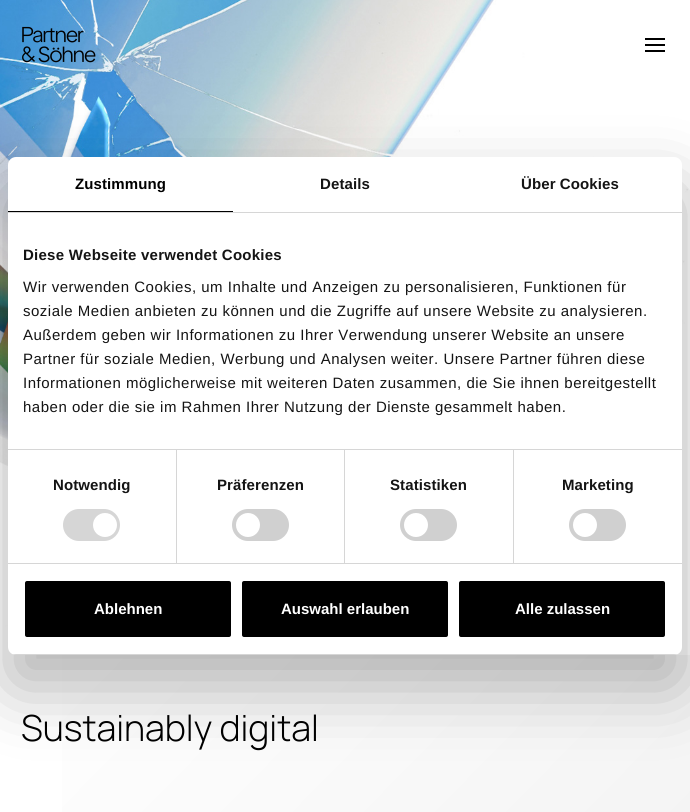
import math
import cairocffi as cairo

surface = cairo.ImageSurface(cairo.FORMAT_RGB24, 690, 812)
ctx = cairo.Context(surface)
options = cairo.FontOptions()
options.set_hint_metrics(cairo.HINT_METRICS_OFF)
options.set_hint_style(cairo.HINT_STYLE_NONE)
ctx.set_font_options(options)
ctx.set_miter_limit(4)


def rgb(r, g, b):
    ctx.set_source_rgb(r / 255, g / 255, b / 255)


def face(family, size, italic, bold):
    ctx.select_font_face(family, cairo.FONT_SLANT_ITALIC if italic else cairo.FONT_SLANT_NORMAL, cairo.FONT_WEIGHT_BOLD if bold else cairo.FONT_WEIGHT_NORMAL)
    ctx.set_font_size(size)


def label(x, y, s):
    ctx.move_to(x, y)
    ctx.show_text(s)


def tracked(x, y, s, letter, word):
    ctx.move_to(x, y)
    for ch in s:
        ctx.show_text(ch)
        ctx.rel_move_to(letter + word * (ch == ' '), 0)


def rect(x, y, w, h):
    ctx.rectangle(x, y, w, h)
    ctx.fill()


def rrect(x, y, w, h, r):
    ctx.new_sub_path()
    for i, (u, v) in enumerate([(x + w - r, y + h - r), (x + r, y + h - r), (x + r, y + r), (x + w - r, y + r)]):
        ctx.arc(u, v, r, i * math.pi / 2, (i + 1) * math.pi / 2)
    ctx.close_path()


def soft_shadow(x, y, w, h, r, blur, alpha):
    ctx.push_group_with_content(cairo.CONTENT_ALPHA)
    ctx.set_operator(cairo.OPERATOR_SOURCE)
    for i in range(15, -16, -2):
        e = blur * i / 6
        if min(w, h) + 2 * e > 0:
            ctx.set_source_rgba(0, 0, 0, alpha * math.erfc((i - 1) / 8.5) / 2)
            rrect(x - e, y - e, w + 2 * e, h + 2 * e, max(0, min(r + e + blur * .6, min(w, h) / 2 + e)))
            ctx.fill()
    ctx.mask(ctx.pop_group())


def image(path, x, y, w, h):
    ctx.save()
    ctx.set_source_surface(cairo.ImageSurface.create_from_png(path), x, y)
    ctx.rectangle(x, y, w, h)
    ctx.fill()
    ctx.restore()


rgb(255, 255, 255)
ctx.paint()
image('image0.png', 0, 0, 688, 655)
gradient = cairo.LinearGradient(-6.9, 662, 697, 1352)
gradient.add_color_stop_rgba(0, 1, 1, 1, 1)
gradient.add_color_stop_rgba(0.25, 0.984, 0.984, 0.984, 1)
gradient.add_color_stop_rgba(0.5, 0.965, 0.965, 0.965, 1)
gradient.add_color_stop_rgba(0.75, 0.949, 0.949, 0.949, 1)
gradient.add_color_stop_rgba(1, 0.933, 0.933, 0.933, 1)
ctx.set_source(gradient)
rect(62, 655, 628, 157)
rgb(0, 0, 0)
soft_shadow(8, 189, 674, 498, 8, 34, 0.3)
rgb(255, 255, 255)
rrect(8, 157, 674, 498, 8)
ctx.fill()
rgb(214, 214, 214)
rect(8, 212, 674, 1)
rgb(0, 0, 0)
rect(8, 211, 225, 1)
face('Liberation Sans', 15, 0, 1)
tracked(75, 189, 'Zustimmung', 0.1, 0)
rgb(20, 20, 20)
tracked(320, 189, 'Details', 0.1, 0)
tracked(521, 189, 'Über Cookies', 0.1, 0)
rgb(214, 214, 214)
rect(8, 449, 674, 1)
rgb(20, 20, 20)
tracked(23, 260, 'Diese Webseite verwendet Cookies', 0.25, 0)
face('Liberation Sans', 15, 0, 0)
tracked(23, 292, 'Wir verwenden Cookies, um Inhalte und Anzeigen zu personalisieren, Funktionen für', 0.5, 0)
tracked(23, 316, 'soziale Medien anbieten zu können und die Zugriffe auf unsere Website zu analysieren.', 0.5, 0)
tracked(23, 340, 'Außerdem geben wir Informationen zu Ihrer Verwendung unserer Website an unsere', 0.5, 0)
tracked(23, 364, 'Partner für soziale Medien, Werbung und Analysen weiter. Unsere Partner führen diese', 0.5, 0)
tracked(23, 388, 'Informationen möglicherweise mit weiteren Daten zusammen, die Sie ihnen bereitgestellt', 0.5, 0)
tracked(23, 412, 'haben oder die sie im Rahmen Ihrer Nutzung der Dienste gesammelt haben.', 0.5, 0)
rgb(214, 214, 214)
rect(8, 563, 674, 1)
rect(176, 450, 1, 113)
face('Liberation Sans', 15, 0, 1)
rgb(20, 20, 20)
tracked(53, 490, 'Notwendig', 0.1, 0)
rgb(214, 214, 214)
rrect(63, 509, 57, 32, 16)
ctx.fill()
rgb(255, 255, 255)
ctx.arc(105, 525, 12, 0, 2 * math.pi)
ctx.fill()
rgb(214, 214, 214)
rect(344, 450, 1, 113)
rgb(20, 20, 20)
tracked(217, 490, 'Präferenzen', 0.1, 0)
rgb(208, 208, 208)
rrect(232, 509, 57, 32, 16)
ctx.fill()
rgb(255, 255, 255)
ctx.arc(248, 525, 12, 0, 2 * math.pi)
ctx.fill()
rgb(214, 214, 214)
rect(513, 450, 1, 113)
rgb(20, 20, 20)
tracked(390, 490, 'Statistiken', 0.1, 0)
rgb(208, 208, 208)
rrect(400, 509, 57, 32, 16)
ctx.fill()
rgb(255, 255, 255)
ctx.arc(416, 525, 12, 0, 2 * math.pi)
ctx.fill()
rgb(20, 20, 20)
tracked(562, 490, 'Marketing', 0.1, 0)
rgb(208, 208, 208)
rrect(569, 509, 57, 32, 16)
ctx.fill()
rgb(255, 255, 255)
ctx.arc(585, 525, 12, 0, 2 * math.pi)
ctx.fill()
ctx.save()
rrect(8, 157, 674, 498, 8)
ctx.clip()
rgb(214, 214, 214)
rect(8, 654, 674, 1)
ctx.restore()
rgb(0, 0, 0)
rrect(24, 580, 208, 58, 3)
ctx.fill_preserve()
rgb(255, 255, 255)
ctx.stroke()
label(94, 614, 'Ablehnen')
rgb(0, 0, 0)
rrect(241, 580, 208, 58, 3)
ctx.fill_preserve()
rgb(255, 255, 255)
ctx.stroke()
label(281, 614, 'Auswahl erlauben')
rgb(0, 0, 0)
rrect(458, 580, 208, 58, 3)
ctx.fill_preserve()
rgb(255, 255, 255)
ctx.stroke()
label(515, 614, 'Alle zulassen')
image('image1.png', 22, 26, 74, 37)
rgb(0, 0, 0)
rect(645, 38, 20, 2)
rect(645, 44, 20, 2)
rect(645, 50, 20, 2)
face('Manrope Light', 36, 0, 0)
label(21, 741, 'Sustainably digital')
surface.write_to_png('render.png')
